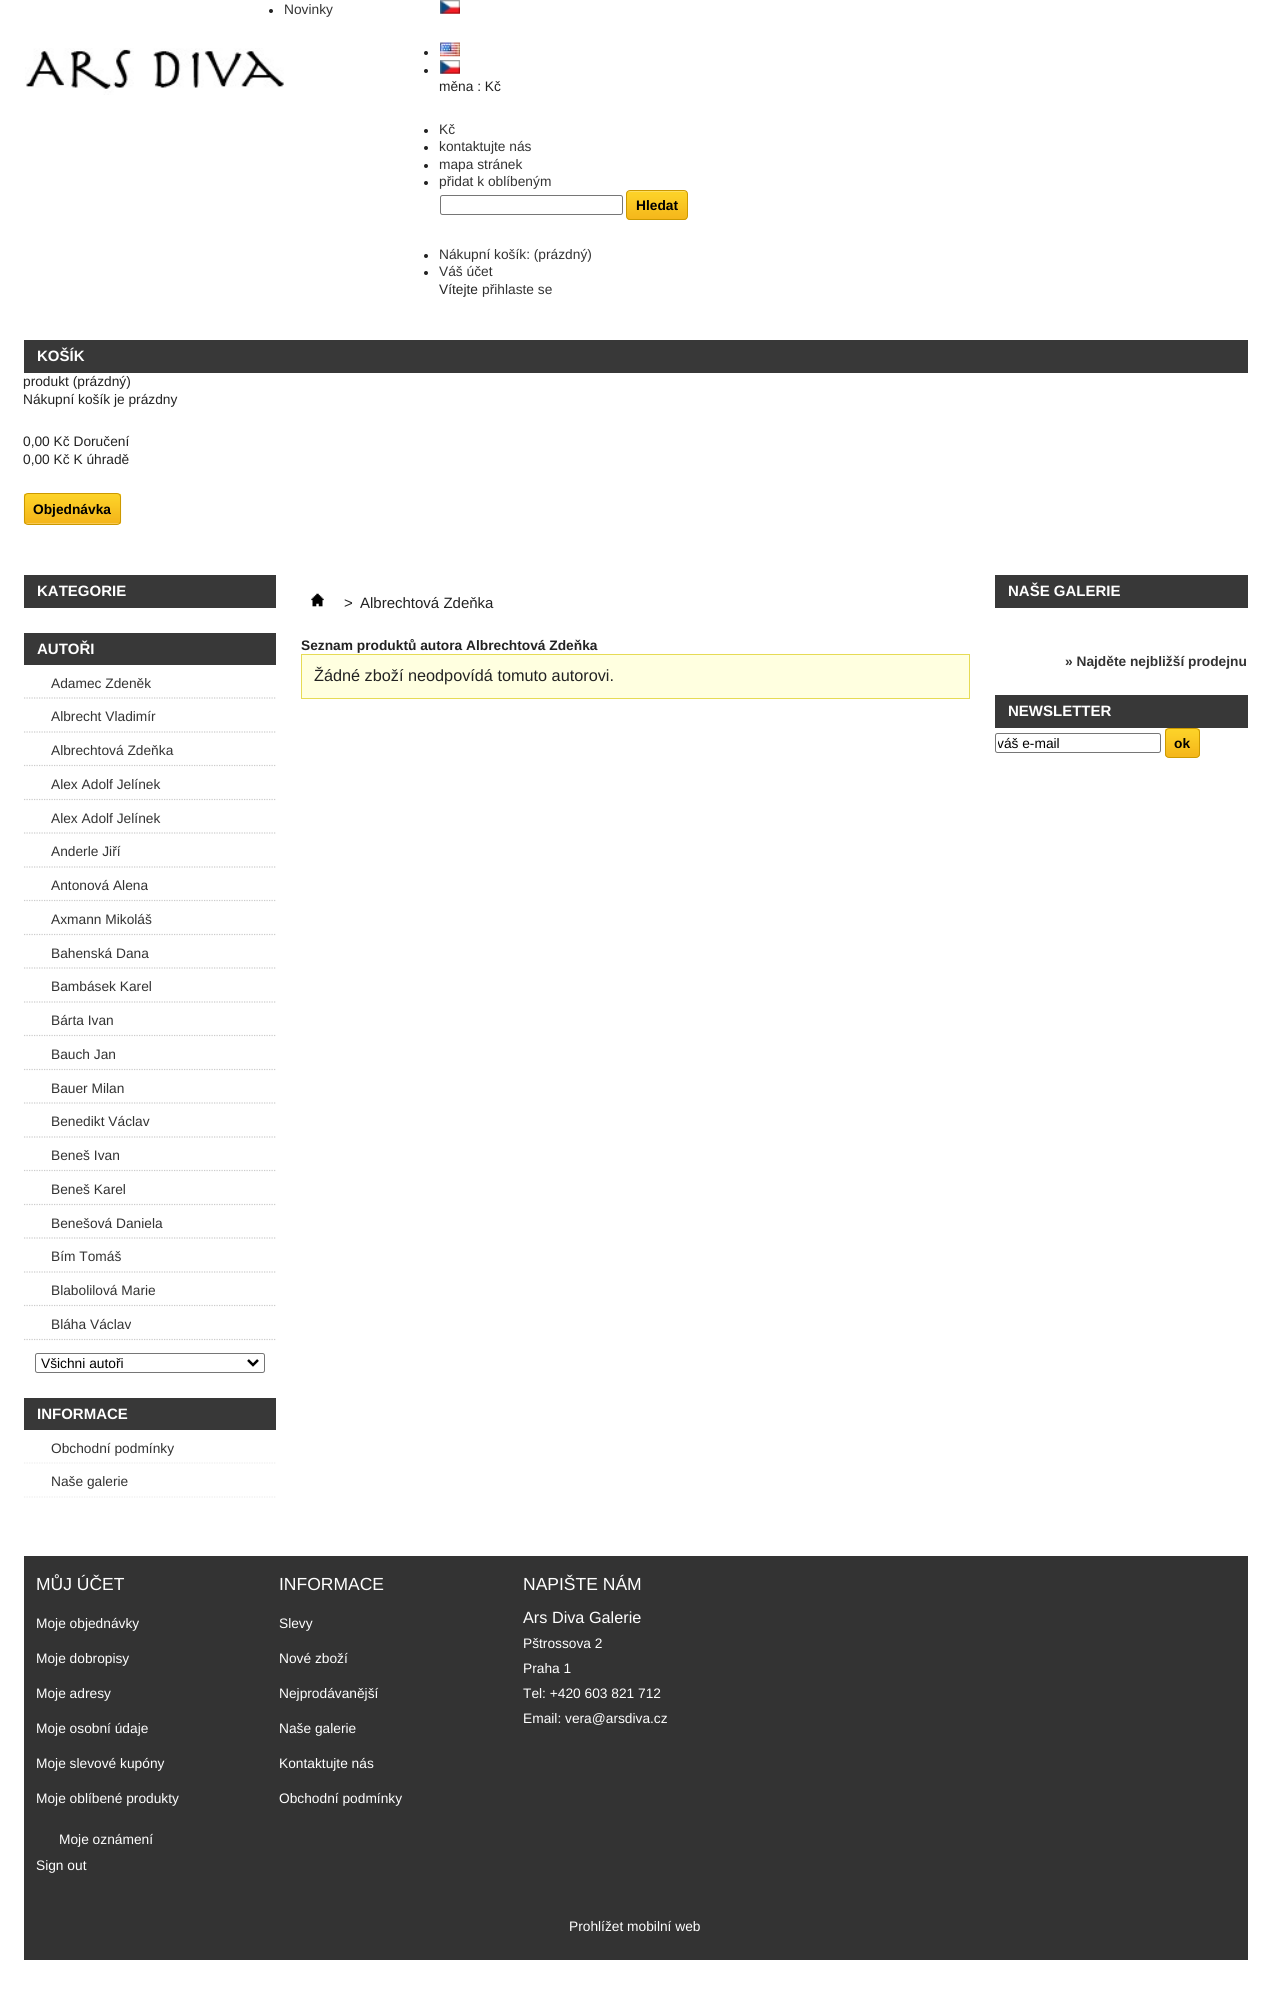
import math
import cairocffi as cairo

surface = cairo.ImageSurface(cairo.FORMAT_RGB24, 1271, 1999)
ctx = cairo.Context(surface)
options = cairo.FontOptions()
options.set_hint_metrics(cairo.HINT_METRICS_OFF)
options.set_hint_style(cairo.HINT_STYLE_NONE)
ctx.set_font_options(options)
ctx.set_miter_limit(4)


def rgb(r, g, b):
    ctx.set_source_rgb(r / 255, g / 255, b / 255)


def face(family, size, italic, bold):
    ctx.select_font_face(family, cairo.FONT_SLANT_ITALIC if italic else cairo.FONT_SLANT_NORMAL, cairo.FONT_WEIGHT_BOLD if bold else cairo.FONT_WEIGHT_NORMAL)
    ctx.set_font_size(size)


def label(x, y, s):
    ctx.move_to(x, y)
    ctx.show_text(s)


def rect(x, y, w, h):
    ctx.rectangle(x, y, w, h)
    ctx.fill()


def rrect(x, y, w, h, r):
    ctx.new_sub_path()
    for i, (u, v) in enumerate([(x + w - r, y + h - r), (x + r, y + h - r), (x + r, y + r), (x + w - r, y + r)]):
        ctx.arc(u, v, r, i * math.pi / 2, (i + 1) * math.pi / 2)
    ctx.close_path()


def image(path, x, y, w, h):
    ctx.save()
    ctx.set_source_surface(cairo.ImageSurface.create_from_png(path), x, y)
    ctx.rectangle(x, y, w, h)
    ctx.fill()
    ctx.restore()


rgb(255, 255, 255)
ctx.paint()
rgb(34, 34, 34)
ctx.arc(271, 11, 2, 0, 2 * math.pi)
ctx.fill()
face('Liberation Sans', 13.75, 0, 0)
rgb(51, 51, 51)
label(284, 14, 'Novinky')
rgb(56, 56, 56)
rect(24, 340, 1224, 33)
face('Liberation Sans', 15, 0, 1)
rgb(255, 255, 255)
label(37, 361, 'KOŠÍK')
face('Liberation Sans', 13.75, 0, 0)
rgb(34, 34, 34)
label(23, 386, 'produkt (prázdný)')
label(23, 404, 'Nákupní košík je prázdny')
label(23, 446, '0,00 Kč Doručení')
label(23, 464, '0,00 Kč K úhradě')
image('image0.png', 23, 493, 99, 31)
rrect(24.5, 493.5, 96, 31, 3.5)
rgb(204, 153, 0)
ctx.set_line_width(1)
ctx.stroke()
face('Liberation Sans', 13.75, 0, 1)
rgb(0, 0, 0)
label(33, 514, 'Objednávka')
image('image1.png', 25, 48, 259, 47)
image('image2.png', 440, 0, 20, 14)
rgb(34, 34, 34)
ctx.arc(426, 53, 2, 0, 2 * math.pi)
ctx.fill()
image('image3.png', 440, 42, 20, 15)
ctx.arc(426, 71, 2, 0, 2 * math.pi)
ctx.fill()
image('image2.png', 440, 60, 20, 14)
face('Liberation Sans', 13.75, 0, 0)
label(439, 91, 'měna : Kč')
ctx.new_path()
ctx.arc(426, 131, 2, 0, 2 * math.pi)
ctx.fill()
rgb(51, 51, 51)
label(439, 134, 'Kč')
rgb(34, 34, 34)
ctx.new_path()
ctx.arc(426, 148, 2, 0, 2 * math.pi)
ctx.fill()
rgb(51, 51, 51)
label(439, 151, 'kontaktujte nás')
rgb(34, 34, 34)
ctx.new_path()
ctx.arc(426, 166, 2, 0, 2 * math.pi)
ctx.fill()
rgb(51, 51, 51)
label(439, 169, 'mapa stránek')
rgb(34, 34, 34)
ctx.new_path()
ctx.arc(426, 183, 2, 0, 2 * math.pi)
ctx.fill()
rgb(51, 51, 51)
label(439, 186, 'přidat k oblíbeným')
rrect(440.5, 195.5, 182, 19, 2)
rgb(118, 118, 118)
ctx.stroke()
image('image4.png', 626, 191, 62, 29)
rrect(626.5, 190.5, 61, 29, 3.5)
rgb(204, 153, 0)
ctx.stroke()
face('Liberation Sans', 13.75, 0, 1)
rgb(0, 0, 0)
label(636, 210, 'Hledat')
rgb(34, 34, 34)
ctx.new_path()
ctx.arc(426, 256, 2, 0, 2 * math.pi)
ctx.fill()
face('Liberation Sans', 13.75, 0, 0)
rgb(51, 51, 51)
label(439, 259, 'Nákupní košík: (prázdný)')
rgb(34, 34, 34)
ctx.new_path()
ctx.arc(426, 273, 2, 0, 2 * math.pi)
ctx.fill()
rgb(51, 51, 51)
label(439, 276, 'Váš účet')
rgb(34, 34, 34)
label(439, 294, 'Vítejte')
rgb(51, 51, 51)
label(482, 294, 'přihlaste se')
rgb(56, 56, 56)
rect(24, 575, 252, 33)
face('Liberation Sans', 15, 0, 1)
rgb(255, 255, 255)
label(37, 596, 'KATEGORIE')
rgb(56, 56, 56)
rect(24, 633, 252, 32)
rgb(255, 255, 255)
label(37, 654, 'AUTOŘI')
ctx.new_path()
ctx.move_to(24, 698)
ctx.line_to(276, 698)
rgb(204, 204, 204)
ctx.set_line_width(1.2)
ctx.set_dash([1.25, 1.25])
ctx.stroke()
face('Liberation Sans', 13.75, 0, 0)
rgb(51, 51, 51)
label(51, 688, 'Adamec Zdeněk')
ctx.new_path()
ctx.move_to(24, 732)
ctx.line_to(276, 732)
rgb(204, 204, 204)
ctx.stroke()
rgb(51, 51, 51)
label(51, 721, 'Albrecht Vladimír')
ctx.new_path()
ctx.move_to(24, 765.5)
ctx.line_to(276, 765.5)
rgb(204, 204, 204)
ctx.stroke()
rgb(51, 51, 51)
label(51, 755, 'Albrechtová Zdeňka')
ctx.new_path()
ctx.move_to(24, 799.5)
ctx.line_to(276, 799.5)
rgb(204, 204, 204)
ctx.stroke()
rgb(51, 51, 51)
label(51, 789, 'Alex Adolf Jelínek')
ctx.new_path()
ctx.move_to(24, 833)
ctx.line_to(276, 833)
rgb(204, 204, 204)
ctx.stroke()
rgb(51, 51, 51)
label(51, 823, 'Alex Adolf Jelínek')
ctx.new_path()
ctx.move_to(24, 867)
ctx.line_to(276, 867)
rgb(204, 204, 204)
ctx.stroke()
rgb(51, 51, 51)
label(51, 856, 'Anderle Jiří')
ctx.new_path()
ctx.move_to(24, 900.5)
ctx.line_to(276, 900.5)
rgb(204, 204, 204)
ctx.stroke()
rgb(51, 51, 51)
label(51, 890, 'Antonová Alena')
ctx.new_path()
ctx.move_to(24, 934.5)
ctx.line_to(276, 934.5)
rgb(204, 204, 204)
ctx.stroke()
rgb(51, 51, 51)
label(51, 924, 'Axmann Mikoláš')
ctx.new_path()
ctx.move_to(24, 968)
ctx.line_to(276, 968)
rgb(204, 204, 204)
ctx.stroke()
rgb(51, 51, 51)
label(51, 958, 'Bahenská Dana')
ctx.new_path()
ctx.move_to(24, 1002)
ctx.line_to(276, 1002)
rgb(204, 204, 204)
ctx.stroke()
rgb(51, 51, 51)
label(51, 991, 'Bambásek Karel')
ctx.new_path()
ctx.move_to(24, 1035.5)
ctx.line_to(276, 1035.5)
rgb(204, 204, 204)
ctx.stroke()
rgb(51, 51, 51)
label(51, 1025, 'Bárta Ivan')
ctx.new_path()
ctx.move_to(24, 1069.5)
ctx.line_to(276, 1069.5)
rgb(204, 204, 204)
ctx.stroke()
rgb(51, 51, 51)
label(51, 1059, 'Bauch Jan')
ctx.new_path()
ctx.move_to(24, 1103)
ctx.line_to(276, 1103)
rgb(204, 204, 204)
ctx.stroke()
rgb(51, 51, 51)
label(51, 1093, 'Bauer Milan')
ctx.new_path()
ctx.move_to(24, 1137)
ctx.line_to(276, 1137)
rgb(204, 204, 204)
ctx.stroke()
rgb(51, 51, 51)
label(51, 1126, 'Benedikt Václav')
ctx.new_path()
ctx.move_to(24, 1170.5)
ctx.line_to(276, 1170.5)
rgb(204, 204, 204)
ctx.stroke()
rgb(51, 51, 51)
label(51, 1160, 'Beneš Ivan')
ctx.new_path()
ctx.move_to(24, 1204.5)
ctx.line_to(276, 1204.5)
rgb(204, 204, 204)
ctx.stroke()
rgb(51, 51, 51)
label(51, 1194, 'Beneš Karel')
ctx.new_path()
ctx.move_to(24, 1238)
ctx.line_to(276, 1238)
rgb(204, 204, 204)
ctx.stroke()
rgb(51, 51, 51)
label(51, 1228, 'Benešová Daniela')
ctx.new_path()
ctx.move_to(24, 1272)
ctx.line_to(276, 1272)
rgb(204, 204, 204)
ctx.stroke()
rgb(51, 51, 51)
label(51, 1261, 'Bím Tomáš')
ctx.new_path()
ctx.move_to(24, 1305.5)
ctx.line_to(276, 1305.5)
rgb(204, 204, 204)
ctx.stroke()
rgb(51, 51, 51)
label(51, 1295, 'Blabolilová Marie')
ctx.new_path()
ctx.move_to(24, 1339.5)
ctx.line_to(276, 1339.5)
rgb(204, 204, 204)
ctx.stroke()
rgb(51, 51, 51)
label(51, 1329, 'Bláha Václav')
rrect(35.5, 1353.5, 229, 19, 2)
rgb(118, 118, 118)
ctx.set_line_width(1)
ctx.set_dash([])
ctx.stroke()
ctx.new_path()
ctx.move_to(248, 1360)
ctx.line_to(253, 1365)
ctx.line_to(258, 1360)
rgb(0, 0, 0)
ctx.set_line_width(2.5)
ctx.stroke()
label(41, 1368, 'Všichni autoři')
rgb(56, 56, 56)
rect(24, 1398, 252, 32)
face('Liberation Sans', 15, 0, 1)
rgb(255, 255, 255)
label(37, 1419, 'INFORMACE')
ctx.new_path()
ctx.move_to(24, 1463)
ctx.line_to(276, 1463)
rgb(238, 238, 238)
ctx.set_line_width(1.2)
ctx.set_dash([1.25, 1.25])
ctx.stroke()
face('Liberation Sans', 13.75, 0, 0)
rgb(51, 51, 51)
label(51, 1453, 'Obchodní podmínky')
ctx.new_path()
ctx.move_to(24, 1497)
ctx.line_to(276, 1497)
rgb(238, 238, 238)
ctx.stroke()
rgb(51, 51, 51)
label(51, 1486, 'Naše galerie')
image('image5.png', 311, 593, 13, 14)
face('Liberation Sans', 15, 0, 0)
rgb(34, 34, 34)
label(344, 608, '>')
label(360, 608, 'Albrechtová Zdeňka')
face('Liberation Sans', 13.75, 0, 1)
label(301, 650, 'Seznam produktů autora Albrechtová Zdeňka')
rgb(255, 255, 224)
ctx.rectangle(301.5, 654.5, 668, 44)
ctx.fill_preserve()
rgb(230, 219, 85)
ctx.set_line_width(1)
ctx.set_dash([])
ctx.stroke()
face('Liberation Sans', 16.25, 0, 0)
rgb(34, 34, 34)
label(314, 681, 'Žádné zboží neodpovídá tomuto autorovi.')
rgb(56, 56, 56)
rect(995, 575, 253, 33)
face('Liberation Sans', 15, 0, 1)
rgb(255, 255, 255)
label(1008, 596, 'NAŠE GALERIE')
face('Liberation Sans', 13.75, 0, 1)
rgb(51, 51, 51)
label(1065, 666, '» Najděte nejbližší prodejnu')
rgb(56, 56, 56)
rect(995, 695, 253, 33)
face('Liberation Sans', 15, 0, 1)
rgb(255, 255, 255)
label(1008, 716, 'NEWSLETTER')
rrect(995.5, 733.5, 165, 19, 2)
rgb(118, 118, 118)
ctx.stroke()
ctx.save()
ctx.rectangle(998, 735, 161, 15)
ctx.clip()
face('Liberation Sans', 13.75, 0, 0)
rgb(0, 0, 0)
label(997, 748, 'váš e-mail')
ctx.restore()
image('image6.png', 1165, 728, 35, 30)
rrect(1165.5, 728.5, 34, 29, 3.5)
rgb(204, 153, 0)
ctx.stroke()
face('Liberation Sans', 13.75, 0, 1)
rgb(0, 0, 0)
label(1174, 748, 'ok')
rgb(51, 51, 51)
rect(24, 1556, 1224, 404)
face('Liberation Sans', 17.5, 0, 0)
rgb(255, 255, 255)
label(36, 1590, 'MŮJ ÚČET')
face('Liberation Sans', 13.75, 0, 0)
label(36, 1628, 'Moje objednávky')
label(36, 1663, 'Moje dobropisy')
label(36, 1698, 'Moje adresy')
label(36, 1733, 'Moje osobní údaje')
label(36, 1768, 'Moje slevové kupóny')
label(36, 1803, 'Moje oblíbené produkty')
label(59, 1844, 'Moje oznámení')
label(36, 1870, 'Sign out')
face('Liberation Sans', 17.5, 0, 0)
label(279, 1590, 'INFORMACE')
face('Liberation Sans', 13.75, 0, 0)
label(279, 1628, 'Slevy')
label(279, 1663, 'Nové zboží')
label(279, 1698, 'Nejprodávanější')
label(279, 1733, 'Naše galerie')
label(279, 1768, 'Kontaktujte nás')
label(279, 1803, 'Obchodní podmínky')
face('Liberation Sans', 17.5, 0, 0)
label(523, 1590, 'NAPIŠTE NÁM')
face('Liberation Sans', 16.25, 0, 0)
label(523, 1623, 'Ars Diva Galerie')
face('Liberation Sans', 13.75, 0, 0)
label(523, 1648, 'Pštrossova 2')
label(523, 1673, 'Praha 1')
label(523, 1698, 'Tel: +420 603 821 712')
label(523, 1723, 'Email: vera@arsdiva.cz')
label(569, 1931, 'Prohlížet mobilní web')
surface.write_to_png('render.png')
